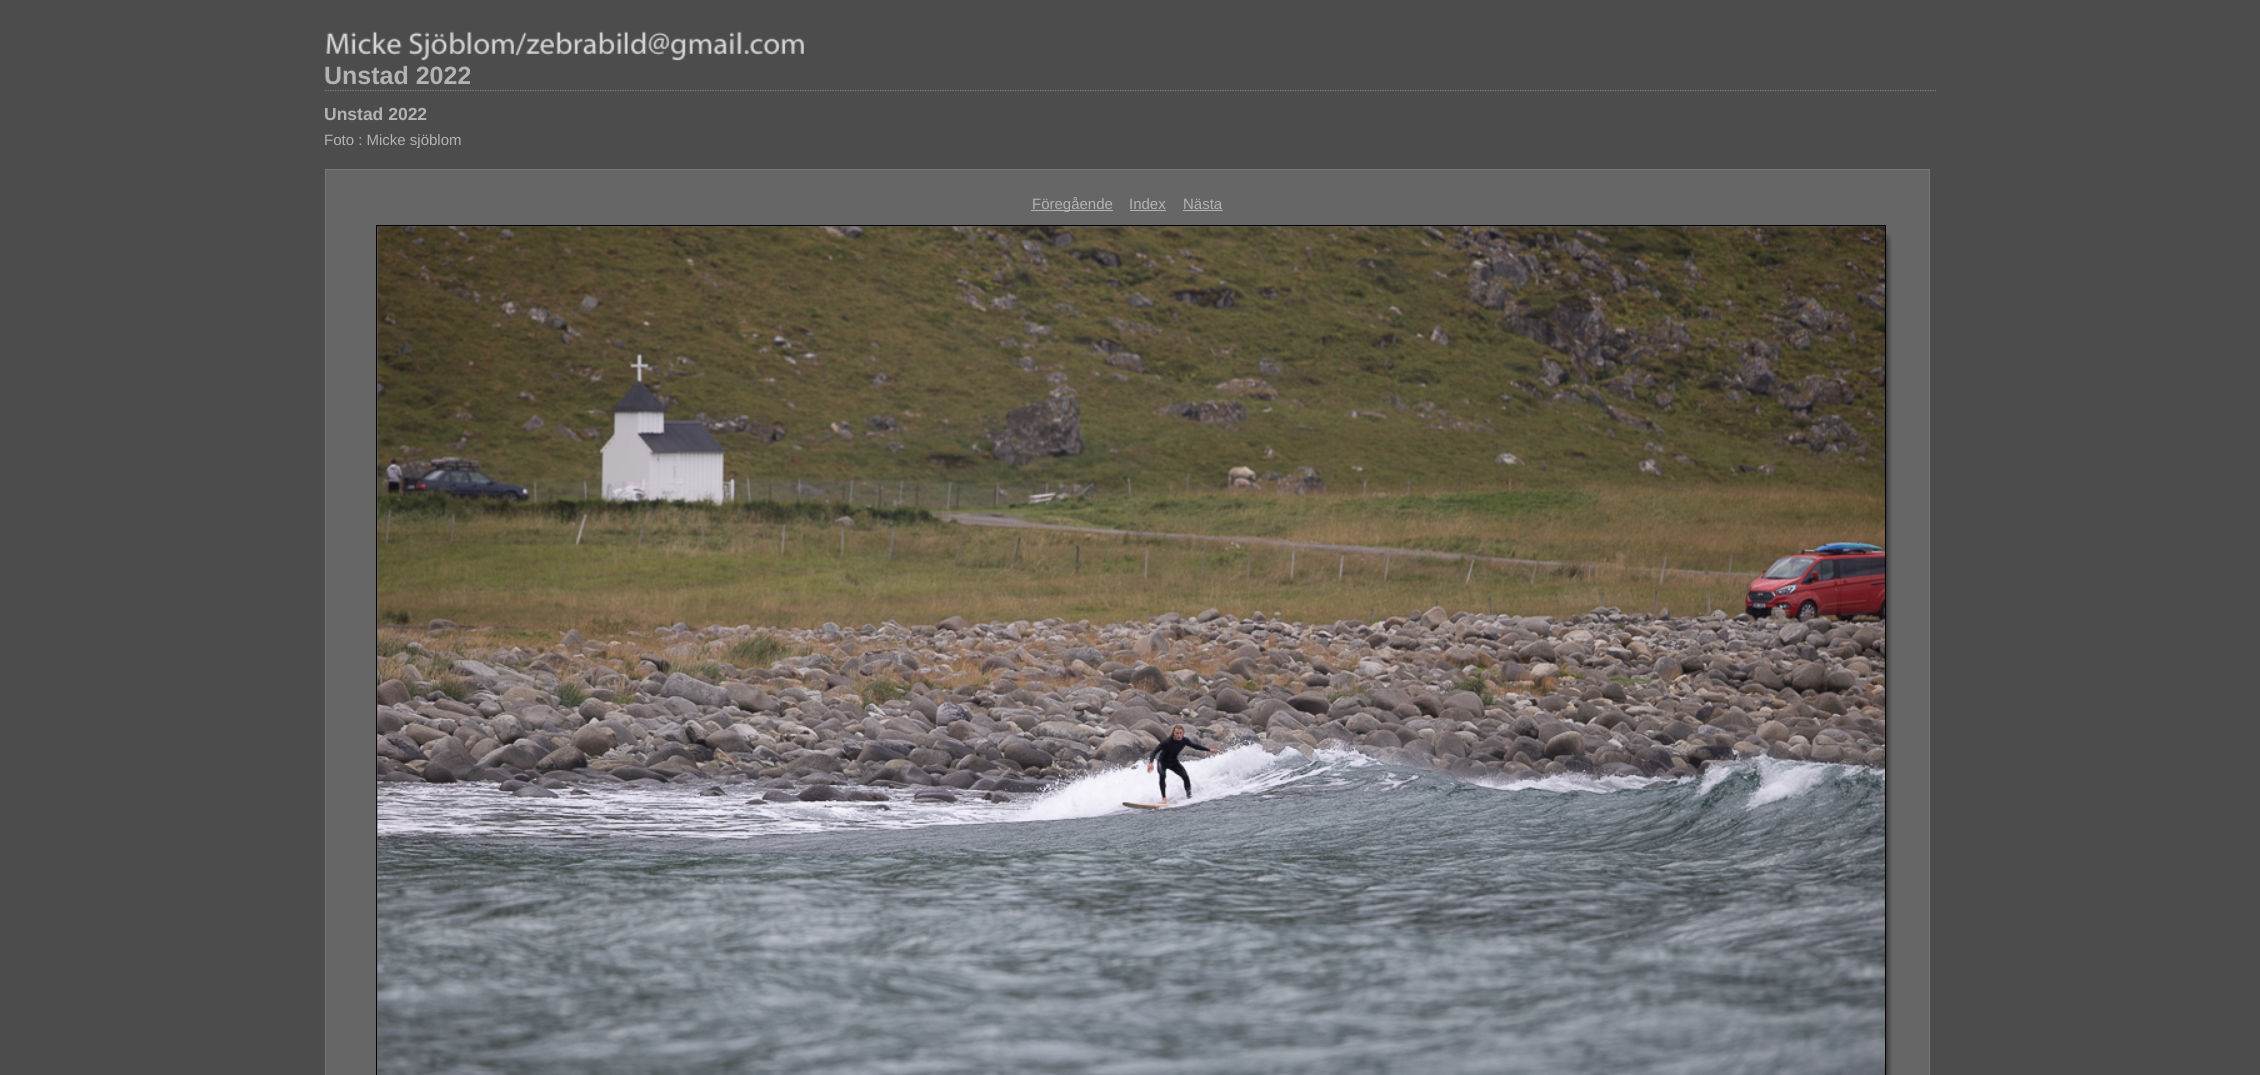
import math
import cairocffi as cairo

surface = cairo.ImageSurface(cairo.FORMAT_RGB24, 2260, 1075)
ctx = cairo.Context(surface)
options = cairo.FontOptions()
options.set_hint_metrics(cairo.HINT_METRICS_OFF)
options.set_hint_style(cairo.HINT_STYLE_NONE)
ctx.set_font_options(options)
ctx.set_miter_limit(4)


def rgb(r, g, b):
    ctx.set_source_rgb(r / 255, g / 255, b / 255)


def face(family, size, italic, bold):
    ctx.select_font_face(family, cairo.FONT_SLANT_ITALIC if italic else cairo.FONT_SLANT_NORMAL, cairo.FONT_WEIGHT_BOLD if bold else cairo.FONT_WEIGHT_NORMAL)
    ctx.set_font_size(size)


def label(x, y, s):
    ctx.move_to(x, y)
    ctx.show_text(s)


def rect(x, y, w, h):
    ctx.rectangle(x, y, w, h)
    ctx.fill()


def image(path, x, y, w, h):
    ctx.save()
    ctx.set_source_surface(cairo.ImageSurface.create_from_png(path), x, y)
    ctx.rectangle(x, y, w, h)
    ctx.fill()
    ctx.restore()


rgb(76, 76, 76)
ctx.paint()
image('image0.png', 326, 31, 478, 30)
ctx.new_path()
ctx.move_to(325, 90.5)
ctx.line_to(1936, 90.5)
rgb(127, 127, 127)
ctx.set_line_width(1.2)
ctx.set_dash([1.25, 1.25])
ctx.stroke()
face('Liberation Sans', 25, 0, 1)
rgb(179, 179, 179)
label(324, 84, 'Unstad 2022')
face('Liberation Sans', 17.5, 0, 1)
label(324, 120, 'Unstad 2022')
face('Liberation Sans', 15, 0, 0)
label(324, 145, 'Foto : Micke sjöblom')
rgb(102, 102, 102)
ctx.rectangle(325.5, 169.5, 1604, 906)
ctx.fill_preserve()
rgb(120, 120, 120)
ctx.set_line_width(1)
ctx.set_dash([])
ctx.stroke()
rgb(179, 179, 179)
rect(1031, 210, 82, 1)
label(1032, 209, 'Föregående')
label(1129, 209, 'Index')
rect(1130, 210, 36, 1)
label(1183, 209, 'Nästa')
rect(1183, 210, 40, 1)
image('image1.png', 1886, 241, 6, 834)
ctx.rectangle(376.5, 225.5, 1509, 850)
rgb(0, 0, 0)
ctx.stroke()
image('image2.png', 377, 226, 1508, 849)
image('image3.png', 1886, 233, 6, 9)
surface.write_to_png('render.png')
